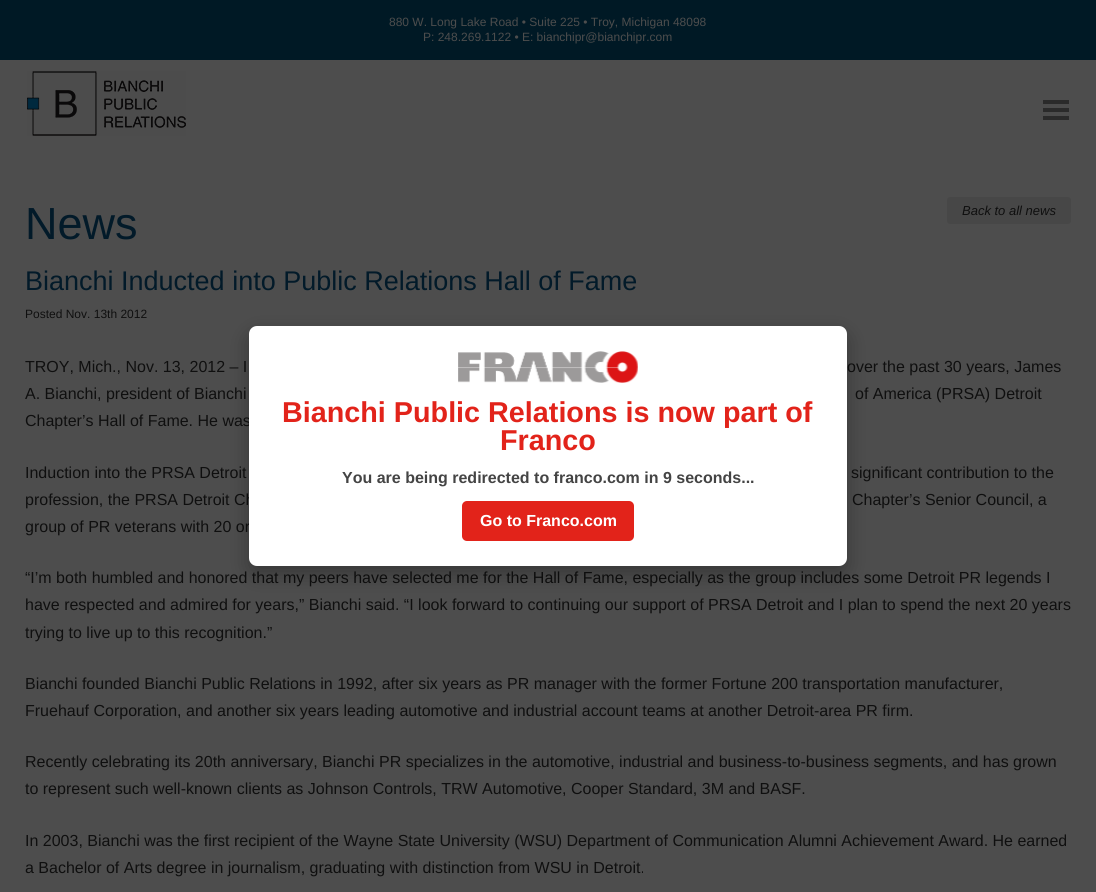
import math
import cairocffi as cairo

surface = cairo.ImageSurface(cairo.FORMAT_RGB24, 1096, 892)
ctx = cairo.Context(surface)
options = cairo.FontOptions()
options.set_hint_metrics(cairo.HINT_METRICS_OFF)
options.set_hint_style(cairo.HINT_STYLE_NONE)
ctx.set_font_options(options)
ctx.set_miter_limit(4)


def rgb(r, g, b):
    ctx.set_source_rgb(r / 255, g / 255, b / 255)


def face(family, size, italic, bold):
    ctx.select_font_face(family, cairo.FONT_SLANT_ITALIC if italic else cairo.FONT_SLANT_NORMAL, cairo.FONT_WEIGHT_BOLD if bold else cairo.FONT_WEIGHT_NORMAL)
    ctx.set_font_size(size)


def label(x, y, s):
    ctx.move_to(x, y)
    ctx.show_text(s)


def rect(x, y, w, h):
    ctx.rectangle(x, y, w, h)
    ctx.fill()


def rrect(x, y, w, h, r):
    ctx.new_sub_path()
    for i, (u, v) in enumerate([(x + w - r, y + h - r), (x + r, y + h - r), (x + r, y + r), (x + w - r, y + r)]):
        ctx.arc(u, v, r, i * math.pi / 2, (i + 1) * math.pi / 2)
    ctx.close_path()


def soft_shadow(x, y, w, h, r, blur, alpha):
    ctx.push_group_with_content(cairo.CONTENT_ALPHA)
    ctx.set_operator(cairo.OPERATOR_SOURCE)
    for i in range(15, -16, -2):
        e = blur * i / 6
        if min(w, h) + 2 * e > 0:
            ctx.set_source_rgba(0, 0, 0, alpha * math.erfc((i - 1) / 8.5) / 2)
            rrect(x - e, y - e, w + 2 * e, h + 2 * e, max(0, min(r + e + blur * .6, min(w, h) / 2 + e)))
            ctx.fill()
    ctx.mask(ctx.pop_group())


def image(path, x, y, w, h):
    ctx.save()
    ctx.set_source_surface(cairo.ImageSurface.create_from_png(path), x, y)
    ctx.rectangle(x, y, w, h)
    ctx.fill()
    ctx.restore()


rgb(77, 77, 77)
ctx.paint()
rgb(0, 25, 37)
rect(0, 0, 1096, 60)
face('Liberation Sans', 12, 0, 0)
rgb(77, 77, 77)
label(389, 26, '880 W. Long Lake Road • Suite 225 • Troy, Michigan 48098')
label(423, 41, 'P: 248.269.1122 • E: bianchipr@bianchipr.com')
image('image0.png', 27, 71, 159, 65)
image('image1.png', 1043, 100, 26, 20)
face('Liberation Sans', 45, 0, 0)
rgb(2, 26, 41)
label(25, 239, 'News')
rgb(71, 71, 71)
rrect(947, 197, 124, 27, 3)
ctx.fill()
face('Liberation Sans', 13, 1, 0)
rgb(15, 15, 15)
label(962, 215, 'Back to all news')
face('Liberation Sans', 27, 0, 0)
rgb(2, 26, 41)
label(25, 290, 'Bianchi Inducted into Public Relations Hall of Fame')
face('Liberation Sans', 12, 0, 0)
rgb(15, 15, 15)
label(25, 318, 'Posted Nov. 13th 2012')
face('Liberation Sans', 16, 0, 0)
label(25, 372, 'TROY, Mich., Nov. 13, 2012 – I')
label(847, 372, 'over the past 30 years, James')
label(25, 399, 'A. Bianchi, president of Bianchi')
label(855, 399, 'of America (PRSA) Detroit')
label(25, 426, 'Chapter’s Hall of Fame. He was')
label(25, 478, 'Induction into the PRSA Detroit')
label(851, 478, 'significant contribution to the')
label(25, 505, 'profession, the PRSA Detroit Ch')
label(852, 505, 'Chapter’s Senior Council, a')
label(25, 532, 'group of PR veterans with 20 or')
label(25, 583, '“I’m both humbled and honored that my peers have selected me for the Hall of Fame, especially as the group includes some Detroit PR legends I')
label(25, 610, 'have respected and admired for years,” Bianchi said. “I look forward to continuing our support of PRSA Detroit and I plan to spend the next 20 years')
label(25, 638, 'trying to live up to this recognition.”')
label(25, 689, 'Bianchi founded Bianchi Public Relations in 1992, after six years as PR manager with the former Fortune 200 transportation manufacturer,')
label(25, 716, 'Fruehauf Corporation, and another six years leading automotive and industrial account teams at another Detroit-area PR firm.')
label(25, 767, 'Recently celebrating its 20th anniversary, Bianchi PR specializes in the automotive, industrial and business-to-business segments, and has grown')
label(25, 794, 'to represent such well-known clients as Johnson Controls, TRW Automotive, Cooper Standard, 3M and BASF.')
label(25, 846, 'In 2003, Bianchi was the first recipient of the Wayne State University (WSU) Department of Communication Alumni Achievement Award. He earned')
label(25, 873, 'a Bachelor of Arts degree in journalism, graduating with distinction from WSU in Detroit.')
rgb(0, 0, 0)
soft_shadow(249, 334, 598, 240, 8, 10, 0.3)
rgb(255, 255, 255)
rrect(249, 326, 598, 240, 8)
ctx.fill()
image('image2.png', 458, 351, 180, 32)
face('Liberation Sans', 28.75, 0, 1)
rgb(226, 35, 26)
label(282, 422, 'Bianchi Public Relations is now part of')
label(500, 450, 'Franco')
face('Liberation Sans', 16, 0, 1)
rgb(68, 68, 68)
label(342, 483, 'You are being redirected to franco.com in 9 seconds...')
rgb(226, 35, 26)
rrect(462, 501, 172, 40, 5)
ctx.fill()
rgb(255, 255, 255)
label(480, 526, 'Go to Franco.com')
surface.write_to_png('render.png')
